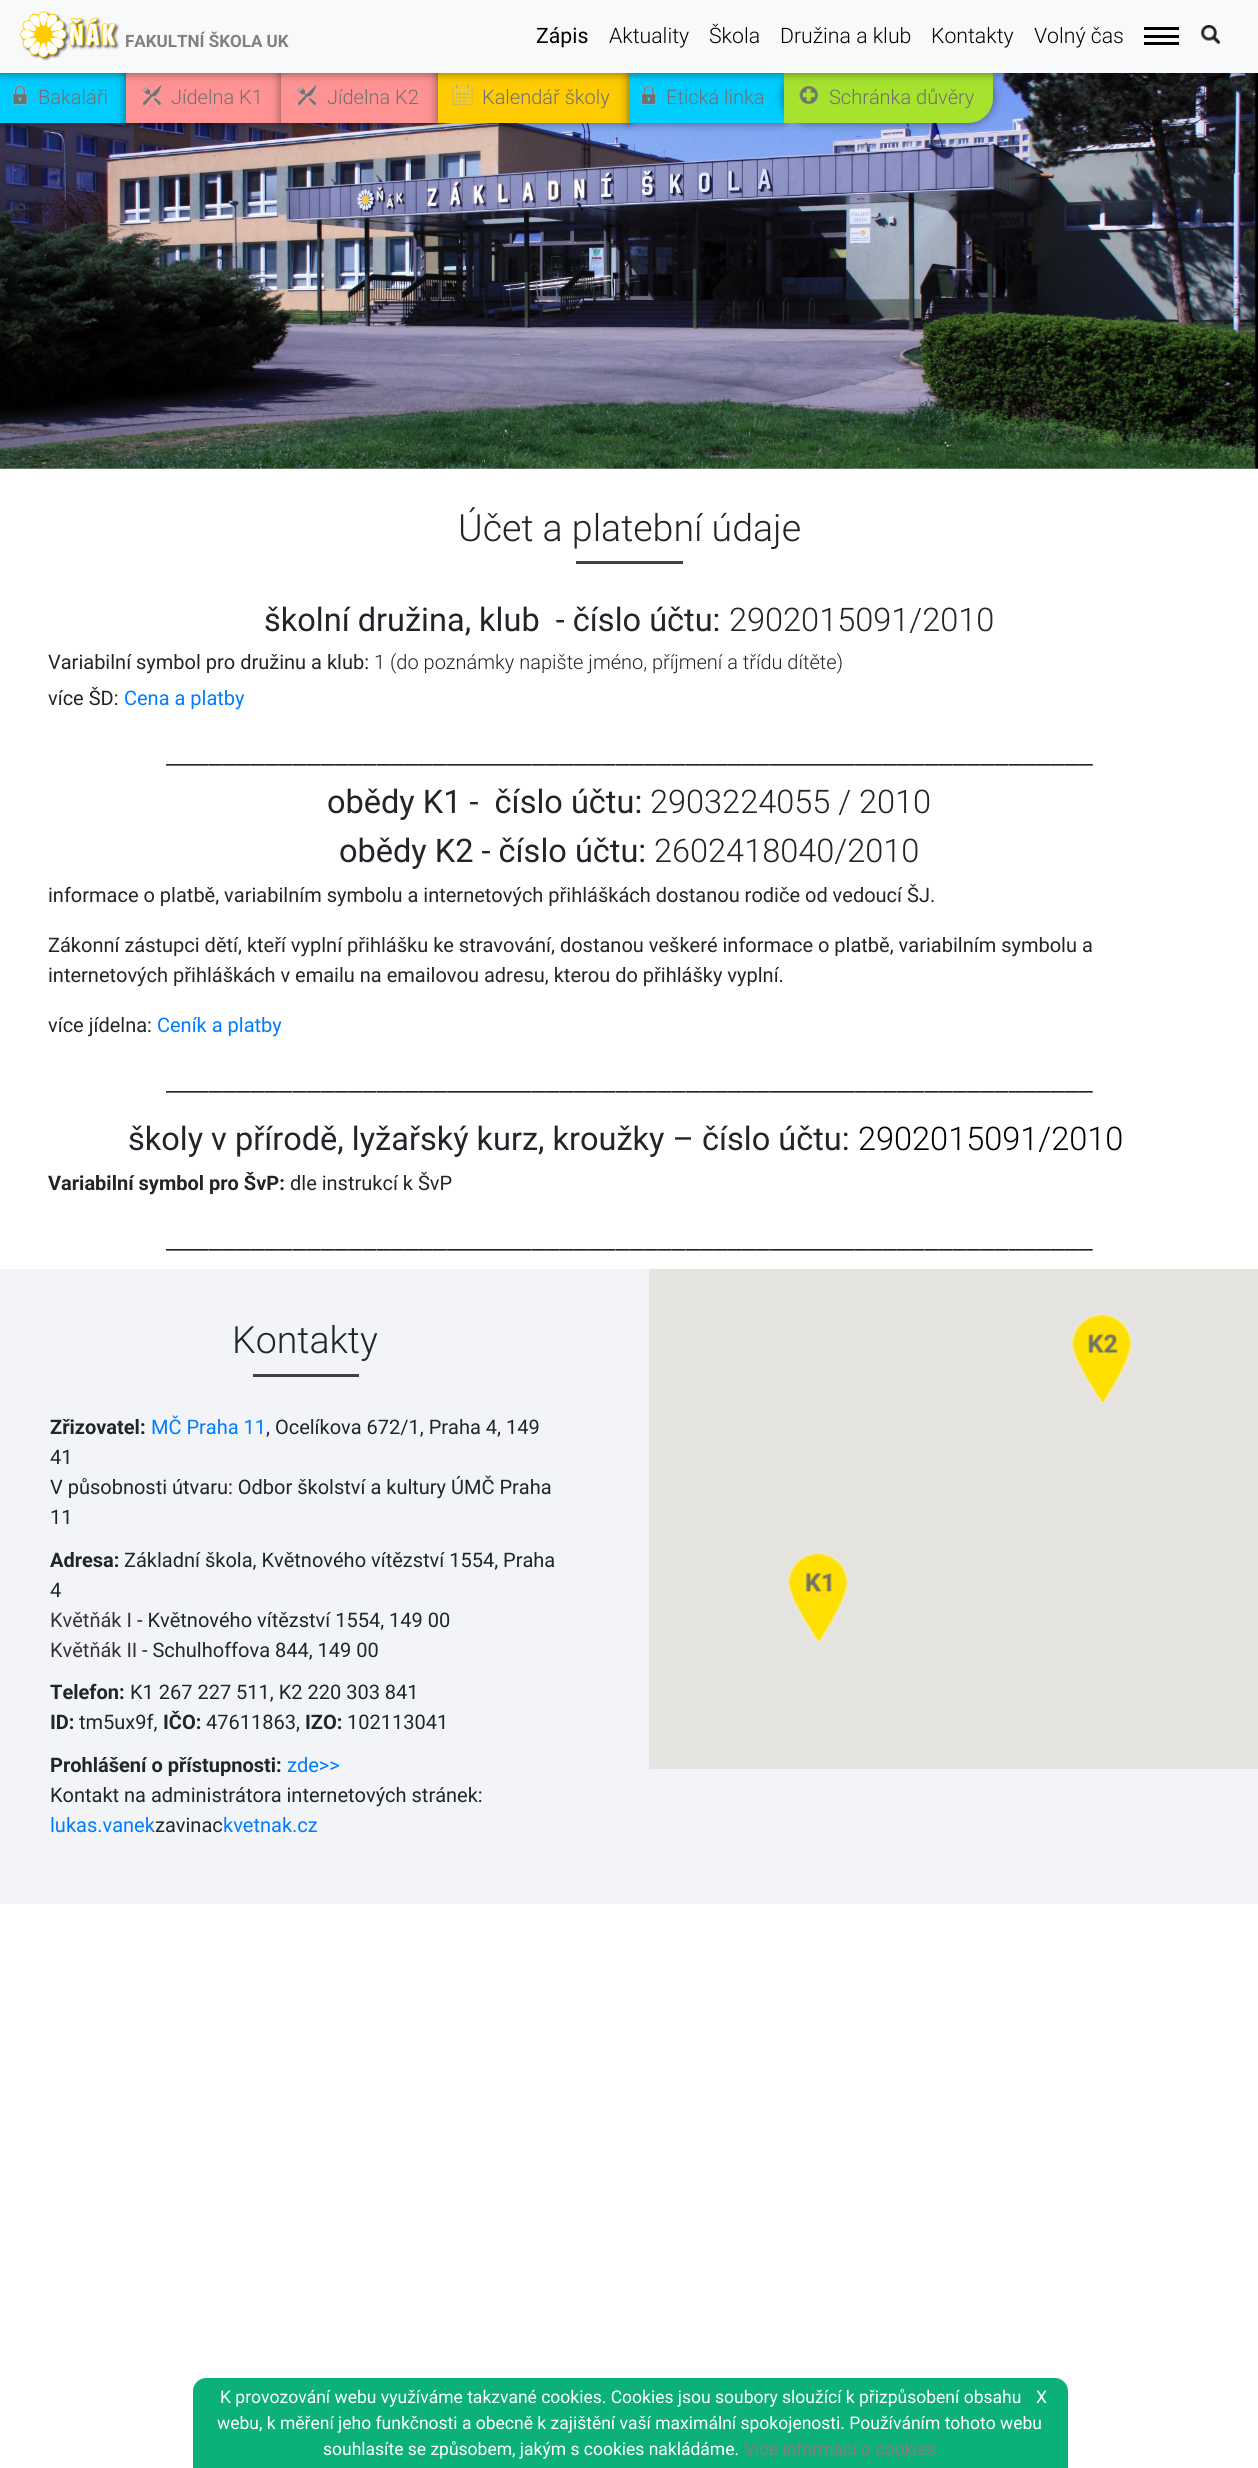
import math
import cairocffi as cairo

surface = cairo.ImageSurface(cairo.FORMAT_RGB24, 1258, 2468)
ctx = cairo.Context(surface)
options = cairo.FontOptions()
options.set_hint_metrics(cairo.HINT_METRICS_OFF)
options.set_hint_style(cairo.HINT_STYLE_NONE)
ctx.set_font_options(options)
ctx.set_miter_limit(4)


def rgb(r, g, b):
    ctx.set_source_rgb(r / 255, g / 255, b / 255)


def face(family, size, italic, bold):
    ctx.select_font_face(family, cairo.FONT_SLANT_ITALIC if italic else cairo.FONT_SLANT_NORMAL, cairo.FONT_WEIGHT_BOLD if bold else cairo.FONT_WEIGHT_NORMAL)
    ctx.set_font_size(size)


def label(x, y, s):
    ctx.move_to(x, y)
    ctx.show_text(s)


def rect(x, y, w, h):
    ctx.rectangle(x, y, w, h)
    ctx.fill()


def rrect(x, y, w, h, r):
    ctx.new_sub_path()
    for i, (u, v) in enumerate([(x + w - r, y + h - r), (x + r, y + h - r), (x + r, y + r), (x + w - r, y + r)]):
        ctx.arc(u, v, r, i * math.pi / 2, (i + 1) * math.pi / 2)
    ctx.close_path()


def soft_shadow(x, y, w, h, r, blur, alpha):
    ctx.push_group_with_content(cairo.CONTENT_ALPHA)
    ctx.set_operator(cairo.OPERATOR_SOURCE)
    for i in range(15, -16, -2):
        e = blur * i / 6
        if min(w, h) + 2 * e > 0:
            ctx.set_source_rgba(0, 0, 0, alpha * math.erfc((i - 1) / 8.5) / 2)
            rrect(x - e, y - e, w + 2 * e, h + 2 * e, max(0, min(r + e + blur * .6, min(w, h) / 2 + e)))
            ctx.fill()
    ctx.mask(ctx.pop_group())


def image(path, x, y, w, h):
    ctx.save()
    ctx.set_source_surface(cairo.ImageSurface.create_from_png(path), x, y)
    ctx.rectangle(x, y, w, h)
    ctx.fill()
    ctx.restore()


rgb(255, 255, 255)
ctx.paint()
image('image7.png', 0, 73, 1258, 396)
rgb(0, 0, 0)
soft_shadow(0, 70, 126, 53, 0, 5, 0.5)
rgb(0, 205, 254)
rect(0, 73, 126, 50)
image('image2.png', 12, 85, 16, 20)
rgb(0, 0, 0)
soft_shadow(126, 70, 155, 53, 0, 5, 0.5)
rgb(255, 147, 147)
rect(126, 73, 155, 50)
image('image3.png', 141, 85, 21, 20)
rgb(0, 0, 0)
soft_shadow(281, 70, 157, 53, 0, 5, 0.5)
rgb(255, 147, 147)
rect(281, 73, 157, 50)
image('image3.png', 296, 85, 21, 20)
rgb(0, 0, 0)
soft_shadow(438, 70, 191, 53, 0, 5, 0.5)
rgb(254, 204, 0)
rect(438, 73, 191, 50)
image('image4.png', 452, 85, 21, 20)
rgb(0, 0, 0)
soft_shadow(629, 70, 155, 53, 0, 5, 0.5)
rgb(0, 205, 254)
rect(629, 73, 155, 50)
image('image5.png', 641, 85, 16, 20)
rgb(0, 0, 0)
soft_shadow(784, 70, 209, 53, 25, 5, 0.5)
rgb(166, 226, 46)
ctx.new_path()
ctx.move_to(784, 70)
ctx.line_to(993, 70)
ctx.line_to(993, 98)
ctx.curve_to(993, 112, 982, 123, 968, 123)
ctx.line_to(784, 123)
ctx.close_path()
ctx.fill()
image('image6.png', 799, 85, 19, 20)
rgb(0, 0, 0)
soft_shadow(0, 0, 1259, 73, 0, 5, 0.5)
rgb(248, 249, 250)
rect(0, 0, 1258, 73)
image('image0.png', 20, 11, 100, 50)
face('Roboto', 17, 0, 1)
rgb(128, 128, 128)
label(125, 47, 'FAKULTNÍ ŠKOLA UK')
face('Roboto', 21.25, 0, 0)
rgb(0, 0, 0)
label(536, 43, 'Zápis')
face('Roboto Light', 21.25, 0, 0)
label(609, 43, 'Aktuality')
label(709, 43, 'Škola')
label(780, 43, 'Družina a klub')
label(931, 43, 'Kontakty')
label(1034, 43, 'Volný čas')
ctx.set_fill_rule(cairo.FILL_RULE_EVEN_ODD)
ctx.new_path()
ctx.move_to(1144, 45)
ctx.line_to(1144, 42)
ctx.line_to(1179, 42)
ctx.line_to(1179, 45)
ctx.close_path()
ctx.move_to(1144, 35)
ctx.line_to(1179, 35)
ctx.line_to(1179, 38)
ctx.line_to(1144, 38)
ctx.close_path()
ctx.move_to(1144, 27)
ctx.line_to(1179, 27)
ctx.line_to(1179, 30)
ctx.line_to(1144, 30)
ctx.close_path()
ctx.fill()
image('image1.png', 1201, 25, 19, 19)
face('Roboto Light', 20, 0, 0)
rgb(112, 112, 112)
label(38, 104, 'Bakaláři')
label(171, 104, 'Jídelna K1')
label(327, 104, 'Jídelna K2')
label(482, 104, 'Kalendář školy')
label(666, 104, 'Etická linka')
label(829, 104, 'Schránka důvěry')
face('Roboto Light', 37.5, 0, 0)
rgb(33, 37, 41)
label(458, 541, 'Účet a platební údaje')
rgb(65, 64, 66)
rect(576, 561, 107, 3)
face('Roboto', 32.5, 0, 0)
rgb(33, 37, 41)
label(264, 631, 'školní družina, klub  - číslo účtu:')
face('Roboto Light', 32.5, 0, 0)
label(729, 631, '2902015091/2010')
face('Roboto', 20, 0, 0)
label(48, 669, 'Variabilní symbol pro družinu a klub:')
face('Roboto Light', 20, 0, 0)
label(374, 669, '1 (do poznámky napište jméno, příjmení a třídu dítěte)')
face('Roboto', 20, 0, 0)
label(48, 705, 'více ŠD:')
rgb(0, 123, 255)
label(124, 705, 'Cena a platby')
face('Roboto Light', 32.5, 0, 0)
rgb(33, 37, 41)
label(166, 764, '__________________________________________________________________')
face('Roboto', 32.5, 0, 0)
label(327, 813, 'obědy K1 -  číslo účtu:')
face('Roboto Light', 32.5, 0, 0)
label(650, 813, '2903224055 / 2010')
face('Roboto', 32.5, 0, 0)
label(339, 862, 'obědy K2 - číslo účtu:')
face('Roboto Light', 32.5, 0, 0)
label(654, 862, '2602418040/2010')
face('Roboto', 20, 0, 0)
label(48, 902, 'informace o platbě, variabilním symbolu a internetových přihláškách dostanou rodiče od vedoucí ŠJ.')
label(48, 952, 'Zákonní zástupci dětí, kteří vyplní přihlášku ke stravování, dostanou veškeré informace o platbě, variabilním symbolu a')
label(48, 982, 'internetových přihláškách v emailu na emailovou adresu, kterou do přihlášky vyplní.')
label(48, 1032, 'více jídelna:')
rgb(0, 123, 255)
label(157, 1032, 'Ceník a platby')
face('Roboto Light', 32.5, 0, 0)
rgb(33, 37, 41)
label(166, 1091, '__________________________________________________________________')
face('Roboto', 32.5, 0, 0)
label(128, 1150, 'školy v přírodě, lyžařský kurz, kroužky – číslo účtu:')
face('Roboto Light', 32.5, 0, 0)
rgb(0, 0, 0)
label(858, 1150, '2902015091/2010')
face('Roboto', 20, 0, 1)
rgb(33, 37, 41)
label(48, 1190, 'Variabilní symbol pro ŠvP:')
face('Roboto', 20, 0, 0)
label(290, 1190, 'dle instrukcí k ŠvP')
face('Roboto Light', 32.5, 0, 0)
label(166, 1249, '__________________________________________________________________')
rgb(242, 244, 248)
rect(0, 1269, 1258, 635)
face('Roboto Light', 37.5, 0, 0)
rgb(33, 37, 41)
label(232, 1353, 'Kontakty')
rgb(65, 64, 66)
rect(253, 1374, 106, 3)
face('Roboto', 20, 0, 1)
rgb(33, 37, 41)
label(50, 1434, 'Zřizovatel:')
face('Roboto', 20, 0, 0)
rgb(0, 123, 255)
label(151, 1434, 'MČ Praha 11')
rgb(33, 37, 41)
label(266, 1434, ', Ocelíkova 672/1, Praha 4, 149')
label(50, 1464, '41')
label(50, 1494, 'V působnosti útvaru: Odbor školství a kultury ÚMČ Praha')
label(50, 1524, '11')
face('Roboto', 20, 0, 1)
label(50, 1567, 'Adresa:')
face('Roboto', 20, 0, 0)
label(124, 1567, 'Základní škola, Květnového vítězství 1554, Praha')
label(50, 1597, '4')
rgb(51, 51, 51)
label(50, 1627, 'Květňák I')
rgb(33, 37, 41)
label(137, 1627, '- Květnového vítězství 1554, 149 00')
rgb(51, 51, 51)
label(50, 1657, 'Květňák II')
rgb(33, 37, 41)
label(142, 1657, '- Schulhoffova 844, 149 00')
face('Roboto', 20, 0, 1)
label(50, 1699, 'Telefon:')
face('Roboto', 20, 0, 0)
label(130, 1699, 'K1 267 227 511, K2 220 303 841')
face('Roboto', 20, 0, 1)
label(50, 1729, 'ID:')
face('Roboto', 20, 0, 0)
label(79, 1729, 'tm5ux9f,')
face('Roboto', 20, 0, 1)
label(163, 1729, 'IČO:')
face('Roboto', 20, 0, 0)
label(206, 1729, '47611863,')
face('Roboto', 20, 0, 1)
label(305, 1729, 'IZO:')
face('Roboto', 20, 0, 0)
label(347, 1729, '102113041')
face('Roboto', 20, 0, 1)
label(50, 1772, 'Prohlášení o přístupnosti:')
face('Roboto', 20, 0, 0)
rgb(0, 123, 255)
label(287, 1772, 'zde>>')
rgb(33, 37, 41)
label(50, 1802, 'Kontakt na administrátora internetových stránek:')
rgb(0, 123, 255)
label(50, 1832, 'lukas.vanek')
rgb(33, 37, 41)
label(155, 1832, 'zavinac')
rgb(0, 123, 255)
label(223, 1832, 'kvetnak.cz')
rgb(229, 227, 223)
rect(649, 1269, 609, 500)
image('image8.png', 1071, 1314, 61, 90)
image('image9.png', 787, 1552, 61, 91)
rgb(12, 177, 121)
ctx.new_path()
ctx.move_to(206, 2378)
ctx.line_to(1055, 2378)
ctx.curve_to(1062, 2378, 1068, 2384, 1068, 2391)
ctx.line_to(1068, 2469)
ctx.line_to(193, 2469)
ctx.line_to(193, 2391)
ctx.curve_to(193, 2384, 199, 2378, 206, 2378)
ctx.close_path()
ctx.fill()
face('Roboto', 17.5, 0, 0)
rgb(255, 255, 255)
label(220, 2403, 'K provozování webu využíváme takzvané cookies. Cookies jsou soubory sloužící k přizpůsobení obsahu')
label(1036, 2403, 'X')
label(217, 2429, 'webu, k měření jeho funkčnosti a obecně k zajištění vaší maximální spokojenosti. Používáním tohoto webu')
label(323, 2455, 'souhlasíte se způsobem, jakým s cookies nakládáme.')
rgb(128, 128, 128)
label(744, 2455, 'Více informací o cookies')
surface.write_to_png('render.png')
